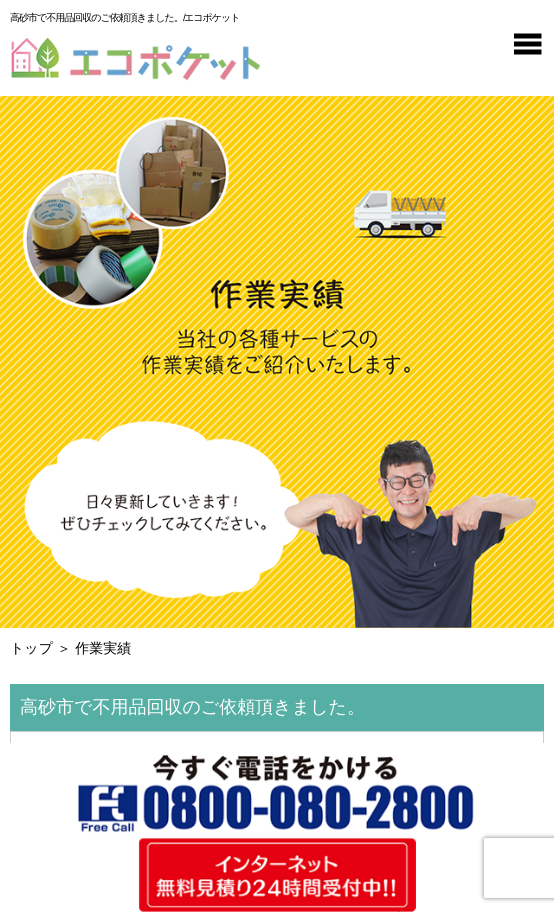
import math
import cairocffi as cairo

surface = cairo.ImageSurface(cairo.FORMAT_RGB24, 554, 912)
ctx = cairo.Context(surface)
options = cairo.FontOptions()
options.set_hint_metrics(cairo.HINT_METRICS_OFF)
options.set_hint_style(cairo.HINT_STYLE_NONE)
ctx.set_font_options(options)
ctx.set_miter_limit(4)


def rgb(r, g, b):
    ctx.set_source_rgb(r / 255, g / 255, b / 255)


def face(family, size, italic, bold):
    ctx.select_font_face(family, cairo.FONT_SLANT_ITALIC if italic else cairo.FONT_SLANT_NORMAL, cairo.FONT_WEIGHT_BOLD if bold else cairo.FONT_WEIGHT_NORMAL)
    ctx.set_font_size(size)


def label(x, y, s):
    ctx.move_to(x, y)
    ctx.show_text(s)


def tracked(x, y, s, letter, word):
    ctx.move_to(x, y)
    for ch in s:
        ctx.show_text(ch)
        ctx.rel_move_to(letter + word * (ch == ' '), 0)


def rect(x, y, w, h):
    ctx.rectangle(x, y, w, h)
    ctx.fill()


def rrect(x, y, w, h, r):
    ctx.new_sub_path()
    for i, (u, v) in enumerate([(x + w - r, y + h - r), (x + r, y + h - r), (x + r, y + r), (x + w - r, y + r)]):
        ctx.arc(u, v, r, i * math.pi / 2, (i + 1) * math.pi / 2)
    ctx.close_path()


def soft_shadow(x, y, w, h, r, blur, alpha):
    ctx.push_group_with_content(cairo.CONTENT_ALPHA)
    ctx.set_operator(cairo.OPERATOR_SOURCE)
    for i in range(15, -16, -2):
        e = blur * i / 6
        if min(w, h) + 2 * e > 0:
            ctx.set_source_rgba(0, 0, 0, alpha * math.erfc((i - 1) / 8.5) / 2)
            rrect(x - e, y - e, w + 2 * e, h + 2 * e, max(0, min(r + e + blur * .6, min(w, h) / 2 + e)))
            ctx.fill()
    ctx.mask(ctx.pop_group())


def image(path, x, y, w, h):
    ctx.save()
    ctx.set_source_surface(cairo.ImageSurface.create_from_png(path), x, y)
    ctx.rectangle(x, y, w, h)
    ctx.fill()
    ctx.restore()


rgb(255, 255, 255)
ctx.paint()
face('WenQuanYi Zen Hei Medium', 10, 0, 0)
rgb(0, 0, 0)
tracked(10, 21, '高砂市で不用品回収のご依頼頂きました。', -1, 0)
face('Liberation Sans', 10, 0, 0)
tracked(183, 21, '/', -1, 0)
face('WenQuanYi Zen Hei Medium', 10, 0, 0)
tracked(184, 21, 'エコポケット', -1, 0)
image('image0.png', 11, 37, 249, 44)
image('image1.png', 514, 33, 28, 22)
image('image2.png', 0, 96, 554, 532)
image('image3.png', 0, 96, 554, 532)
face('WenQuanYi Zen Hei Medium', 14, 0, 0)
label(10, 653, 'トップ')
label(57, 653, '＞ 作業実績')
rgb(85, 175, 164)
rect(10, 684, 534, 47)
face('WenQuanYi Zen Hei Medium', 18, 0, 0)
rgb(255, 255, 255)
label(20, 713, '高砂市で不用品回収のご依頼頂きました。')
ctx.rectangle(10.5, 731.5, 533, 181)
rgb(204, 204, 204)
ctx.set_line_width(1)
ctx.stroke()
rgb(255, 255, 255)
rect(10, 743, 534, 169)
image('image4.png', 78, 755, 396, 78)
image('image5.png', 138, 837, 278, 75)
ctx.save()
ctx.set_fill_rule(cairo.FILL_RULE_EVEN_ODD)
ctx.new_path()
ctx.move_to(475, 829)
ctx.line_to(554, 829)
ctx.line_to(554, 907)
ctx.line_to(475, 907)
ctx.close_path()
ctx.move_to(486, 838)
ctx.line_to(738, 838)
ctx.curve_to(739, 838, 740, 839, 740, 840)
ctx.line_to(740, 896)
ctx.curve_to(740, 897, 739, 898, 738, 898)
ctx.line_to(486, 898)
ctx.curve_to(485, 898, 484, 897, 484, 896)
ctx.line_to(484, 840)
ctx.curve_to(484, 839, 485, 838, 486, 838)
ctx.close_path()
ctx.clip()
rgb(128, 128, 128)
soft_shadow(484, 838, 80, 60, 2, 2.5, 1)
ctx.restore()
surface.write_to_png('render.png')
